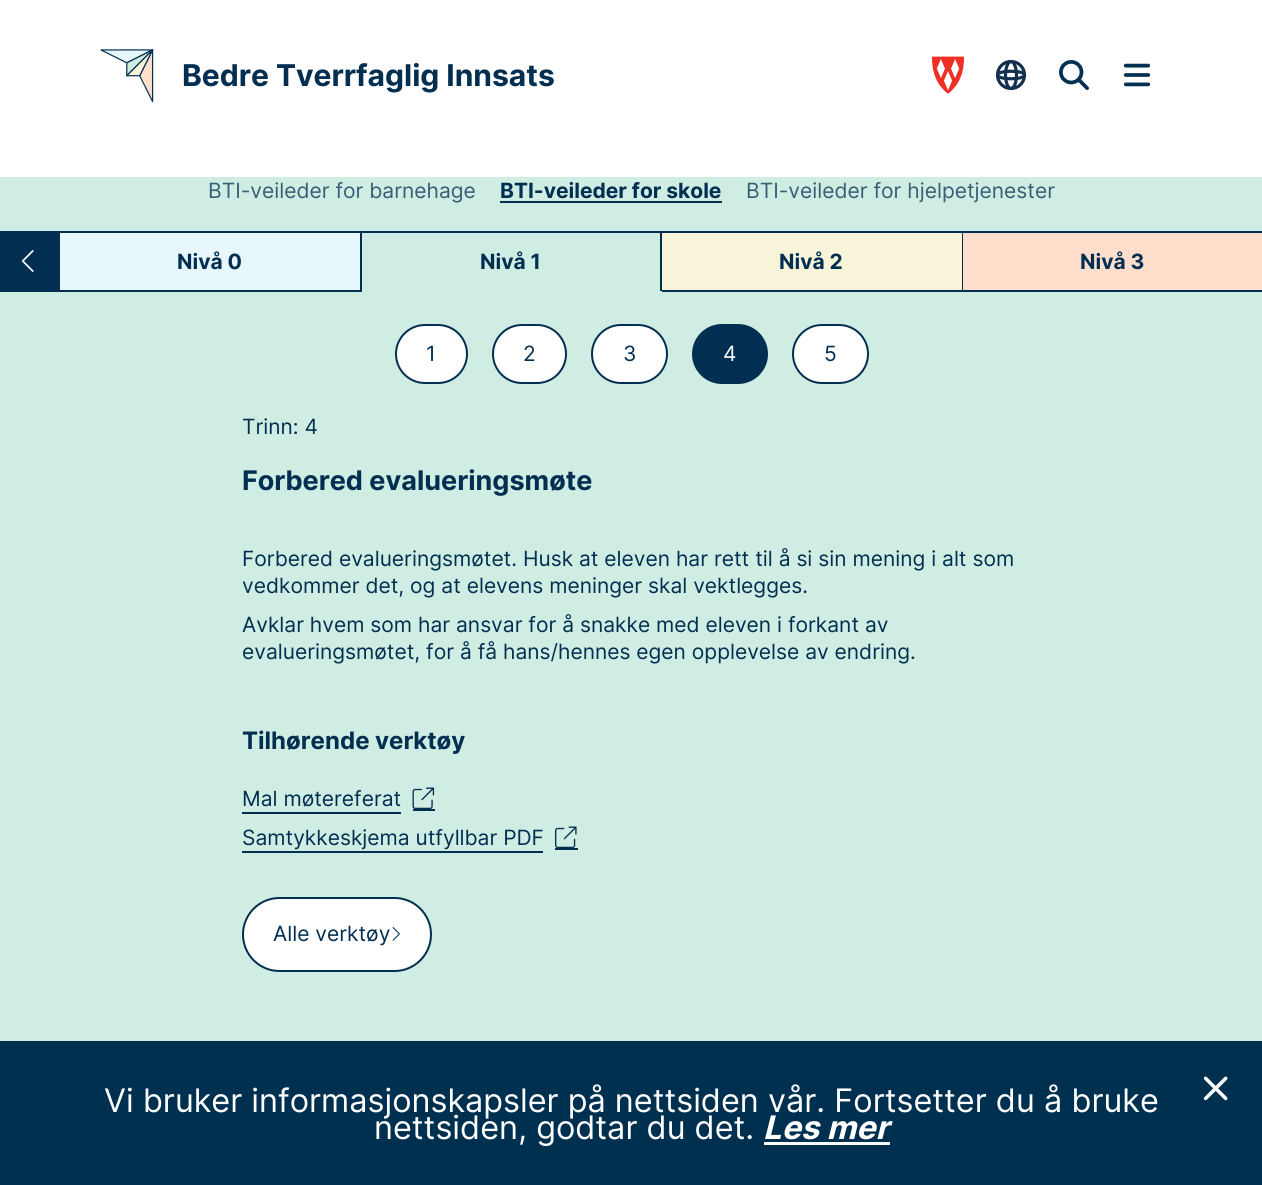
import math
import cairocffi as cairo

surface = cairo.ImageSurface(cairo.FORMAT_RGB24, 1262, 1185)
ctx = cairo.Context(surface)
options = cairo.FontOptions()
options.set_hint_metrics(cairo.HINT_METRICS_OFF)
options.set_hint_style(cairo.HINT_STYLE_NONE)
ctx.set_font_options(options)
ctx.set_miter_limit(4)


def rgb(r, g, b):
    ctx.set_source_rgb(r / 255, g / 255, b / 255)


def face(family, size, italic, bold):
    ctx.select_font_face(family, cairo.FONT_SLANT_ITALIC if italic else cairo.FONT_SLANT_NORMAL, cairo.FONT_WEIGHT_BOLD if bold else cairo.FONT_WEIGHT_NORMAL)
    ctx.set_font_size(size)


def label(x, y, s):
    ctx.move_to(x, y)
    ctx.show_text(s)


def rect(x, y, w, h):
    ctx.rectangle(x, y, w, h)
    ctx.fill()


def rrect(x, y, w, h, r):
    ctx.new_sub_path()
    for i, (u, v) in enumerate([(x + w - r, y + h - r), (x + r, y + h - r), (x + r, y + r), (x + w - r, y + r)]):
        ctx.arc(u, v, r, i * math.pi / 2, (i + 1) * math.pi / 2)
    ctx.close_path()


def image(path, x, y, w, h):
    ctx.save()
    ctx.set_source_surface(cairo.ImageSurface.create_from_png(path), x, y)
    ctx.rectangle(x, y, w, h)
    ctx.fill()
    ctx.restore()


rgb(255, 255, 255)
ctx.paint()
image('image0.png', 100, 49, 54, 54)
face('Inter', 30, 0, 1)
rgb(2, 47, 81)
label(182, 86, 'Bedre Tverrfaglig Innsats')
image('image1.png', 931, 56, 34, 38)
ctx.arc(1011, 75, 13.5, 0, 2 * math.pi)
rgb(18, 47, 78)
ctx.set_line_width(3.2)
ctx.stroke()
ctx.new_path()
ctx.move_to(1011, 61.5)
ctx.curve_to(1014, 61.5, 1016.5, 67.5, 1016.5, 75)
ctx.curve_to(1016.5, 82.5, 1014, 88.5, 1011, 88.5)
ctx.curve_to(1008, 88.5, 1005.5, 82.5, 1005.5, 75)
ctx.curve_to(1005.5, 67.5, 1008, 61.5, 1011, 61.5)
ctx.close_path()
ctx.stroke()
ctx.new_path()
ctx.move_to(1024.5, 75)
ctx.curve_to(1024.5, 80, 997.5, 80, 997.5, 75)
ctx.curve_to(997.5, 70, 1024.5, 70, 1024.5, 75)
ctx.close_path()
ctx.stroke()
image('image2.png', 1059, 60, 30, 30)
image('image3.png', 1123, 63, 28, 24)
rgb(208, 237, 227)
rect(0, 177, 1262, 864)
face('Inter', 21, 0, 0)
rgb(54, 95, 118)
label(208, 198, 'BTI-veileder for barnehage')
face('Inter', 21, 0, 1)
rgb(2, 47, 81)
label(500, 198, 'BTI-veileder for skole')
rect(500, 201, 222, 2)
face('Inter', 21, 0, 0)
rgb(54, 95, 118)
label(746, 198, 'BTI-veileder for hjelpetjenester')
rgb(2, 47, 81)
rect(0, 231, 60, 61)
image('image4.png', 21, 250, 13, 22)
rgb(231, 247, 252)
rect(60, 233, 300, 57)
rgb(2, 47, 81)
rect(60, 231, 1202, 2)
rect(360, 231, 2, 60)
rect(60, 290, 302, 2)
face('Inter', 21, 0, 1)
label(177, 269, 'Nivå 0')
rect(660, 231, 2, 60)
label(480, 269, 'Nivå 1')
rgb(248, 244, 218)
rect(662, 233, 300, 57)
rgb(2, 47, 81)
rect(962, 231, 1, 60)
rect(662, 290, 600, 2)
label(779, 269, 'Nivå 2')
rgb(255, 223, 203)
rect(963, 233, 299, 57)
rgb(2, 47, 81)
label(1080, 269, 'Nivå 3')
rgb(255, 255, 255)
rrect(396, 325, 71, 58, 29)
ctx.fill_preserve()
rgb(2, 47, 81)
ctx.set_line_width(2)
ctx.stroke()
face('Inter', 21, 0, 0)
label(426, 361, '1')
rgb(255, 255, 255)
rrect(493, 325, 73, 58, 29)
ctx.fill_preserve()
rgb(2, 47, 81)
ctx.stroke()
label(523, 361, '2')
rgb(255, 255, 255)
rrect(592, 325, 75, 58, 29)
ctx.fill_preserve()
rgb(2, 47, 81)
ctx.stroke()
label(623, 361, '3')
rrect(693, 325, 74, 58, 29)
ctx.fill_preserve()
ctx.stroke()
rgb(255, 255, 255)
label(723, 361, '4')
rrect(793, 325, 75, 58, 29)
ctx.fill_preserve()
rgb(2, 47, 81)
ctx.stroke()
label(824, 361, '5')
label(242, 434, 'Trinn: 4')
face('Inter', 27, 0, 1)
label(242, 490, 'Forbered evalueringsmøte')
face('Inter', 21, 0, 0)
label(242, 566, 'Forbered evalueringsmøtet. Husk at eleven har rett til å si sin mening i alt som')
label(242, 593, 'vedkommer det, og at elevens meninger skal vektlegges.')
label(242, 632, 'Avklar hvem som har ansvar for å snakke med eleven i forkant av')
label(242, 659, 'evalueringsmøtet, for å få hans/hennes egen opplevelse av endring.')
face('Inter', 24, 0, 1)
label(242, 749, 'Tilhørende verktøy')
rect(242, 812, 159, 2)
rect(413, 809, 22, 2)
face('Inter', 21, 0, 0)
label(242, 806, 'Mal møtereferat')
image('image5.png', 412, 787, 23, 22)
rect(242, 851, 301, 2)
rect(555, 848, 23, 2)
label(242, 845, 'Samtykkeskjema utfyllbar PDF')
image('image6.png', 555, 826, 22, 22)
rgb(255, 255, 255)
rrect(243, 898, 188, 73, 36.5)
ctx.fill_preserve()
rgb(2, 47, 81)
ctx.stroke()
label(273, 941, 'Alle verktøy')
image('image7.png', 392, 927, 8, 14)
rgb(0, 48, 80)
rect(0, 1041, 1262, 144)
face('Inter', 32.4, 0, 0)
rgb(255, 255, 255)
label(104, 1112, 'Vi bruker informasjonskapsler på nettsiden vår. Fortsetter du å bruke')
label(374, 1139, 'nettsiden, godtar du det.')
face('Inter', 32.4, 1, 1)
label(763, 1139, 'Les mer')
rect(764, 1142, 126, 3)
image('image8.png', 1203, 1076, 25, 25)
surface.write_to_png('render.png')
